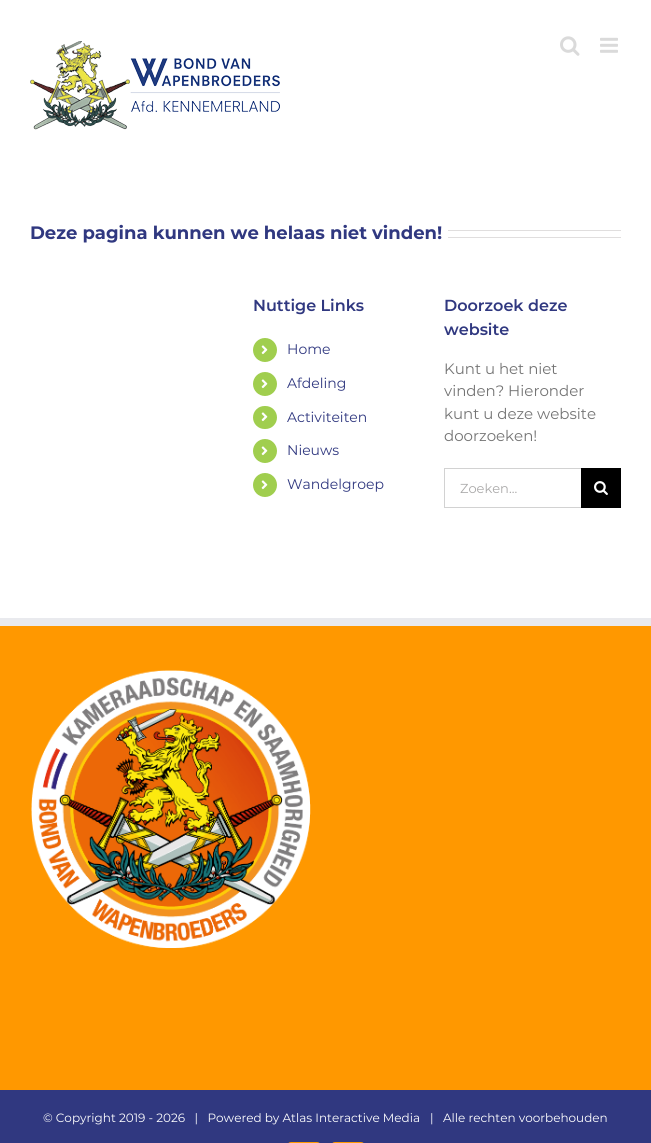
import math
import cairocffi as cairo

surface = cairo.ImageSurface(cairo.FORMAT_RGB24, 651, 1143)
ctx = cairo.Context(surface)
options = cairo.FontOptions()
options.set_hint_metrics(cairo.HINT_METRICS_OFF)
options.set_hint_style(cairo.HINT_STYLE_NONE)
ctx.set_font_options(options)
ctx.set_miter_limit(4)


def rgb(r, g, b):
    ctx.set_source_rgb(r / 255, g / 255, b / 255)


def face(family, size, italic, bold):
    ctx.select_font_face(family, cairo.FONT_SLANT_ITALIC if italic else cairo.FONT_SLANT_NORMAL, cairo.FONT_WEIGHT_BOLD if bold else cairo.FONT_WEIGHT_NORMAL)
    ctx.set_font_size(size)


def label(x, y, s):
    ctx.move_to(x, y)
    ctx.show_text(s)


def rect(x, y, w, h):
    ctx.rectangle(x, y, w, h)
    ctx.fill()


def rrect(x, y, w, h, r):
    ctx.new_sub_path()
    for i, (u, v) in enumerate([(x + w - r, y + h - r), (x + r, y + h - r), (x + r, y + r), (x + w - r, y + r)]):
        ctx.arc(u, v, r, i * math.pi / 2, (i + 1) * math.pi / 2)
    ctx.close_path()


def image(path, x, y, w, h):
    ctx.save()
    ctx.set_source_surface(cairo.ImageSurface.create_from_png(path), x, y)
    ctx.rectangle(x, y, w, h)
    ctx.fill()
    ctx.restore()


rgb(255, 255, 255)
ctx.paint()
image('image0.png', 30, 41, 250, 89)
image('image1.png', 560, 36, 20, 20)
image('image2.png', 600, 37, 18, 16)
face('Montserrat', 18, 0, 1)
rgb(48, 56, 128)
label(30, 239, 'Deze pagina kunnen we helaas niet vinden!')
rgb(224, 222, 222)
rect(448, 230, 173, 1)
rect(448, 237, 173, 1)
face('Montserrat SemiBold', 16, 0, 0)
rgb(48, 56, 128)
label(253, 311, 'Nuttige Links')
rgb(160, 206, 78)
ctx.new_path()
ctx.arc(265, 350, 12, 0, 2 * math.pi)
ctx.fill()
image('image3.png', 261, 345, 7, 10)
face('Montserrat', 14, 0, 0)
rgb(48, 56, 128)
label(287, 354, 'Home')
rgb(160, 206, 78)
ctx.new_path()
ctx.arc(265, 384, 12, 0, 2 * math.pi)
ctx.fill()
image('image3.png', 261, 379, 7, 10)
rgb(48, 56, 128)
label(287, 388, 'Afdeling')
rgb(160, 206, 78)
rrect(253, 406, 24, 23, 11.5)
ctx.fill()
image('image3.png', 261, 412, 7, 10)
rgb(48, 56, 128)
label(287, 422, 'Activiteiten')
rgb(160, 206, 78)
ctx.new_path()
ctx.arc(265, 451, 12, 0, 2 * math.pi)
ctx.fill()
image('image3.png', 261, 446, 7, 10)
rgb(48, 56, 128)
label(287, 455, 'Nieuws')
rgb(160, 206, 78)
ctx.new_path()
ctx.arc(265, 485, 12, 0, 2 * math.pi)
ctx.fill()
image('image3.png', 261, 480, 7, 10)
rgb(48, 56, 128)
label(287, 489, 'Wandelgroep')
face('Montserrat SemiBold', 16, 0, 0)
label(444, 311, 'Doorzoek deze')
label(444, 335, 'website')
face('Montserrat', 15, 0, 0)
rgb(116, 116, 116)
label(444, 374, 'Kunt u het niet')
label(444, 396, 'vinden? Hieronder')
label(444, 419, 'kunt u deze website')
label(444, 441, 'doorzoeken!')
rgb(210, 210, 210)
rect(444, 468, 137, 1)
rect(444, 507, 137, 1)
rect(444, 468, 1, 40)
face('Montserrat', 13, 0, 0)
rgb(170, 169, 169)
label(460, 493, 'Zoeken...')
rgb(0, 0, 0)
rect(581, 468, 40, 40)
image('image4.png', 594, 481, 14, 14)
rgb(255, 152, 0)
rect(0, 626, 651, 464)
rgb(233, 234, 238)
rect(0, 618, 651, 8)
image('image5.png', 31, 670, 280, 278)
rgb(48, 56, 128)
rect(0, 1090, 651, 53)
face('Montserrat', 12, 0, 0)
rgb(255, 255, 255)
label(43, 1122, '© Copyright 2019 - 2026   |   Powered by Atlas Interactive Media')
label(430, 1122, '|   Alle rechten voorbehouden')
rrect(287.5, 1142.5, 33, 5, 3.5)
rgb(255, 152, 0)
ctx.set_line_width(1)
ctx.stroke()
rrect(331.5, 1142.5, 33, 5, 3.5)
ctx.stroke()
surface.write_to_png('render.png')
